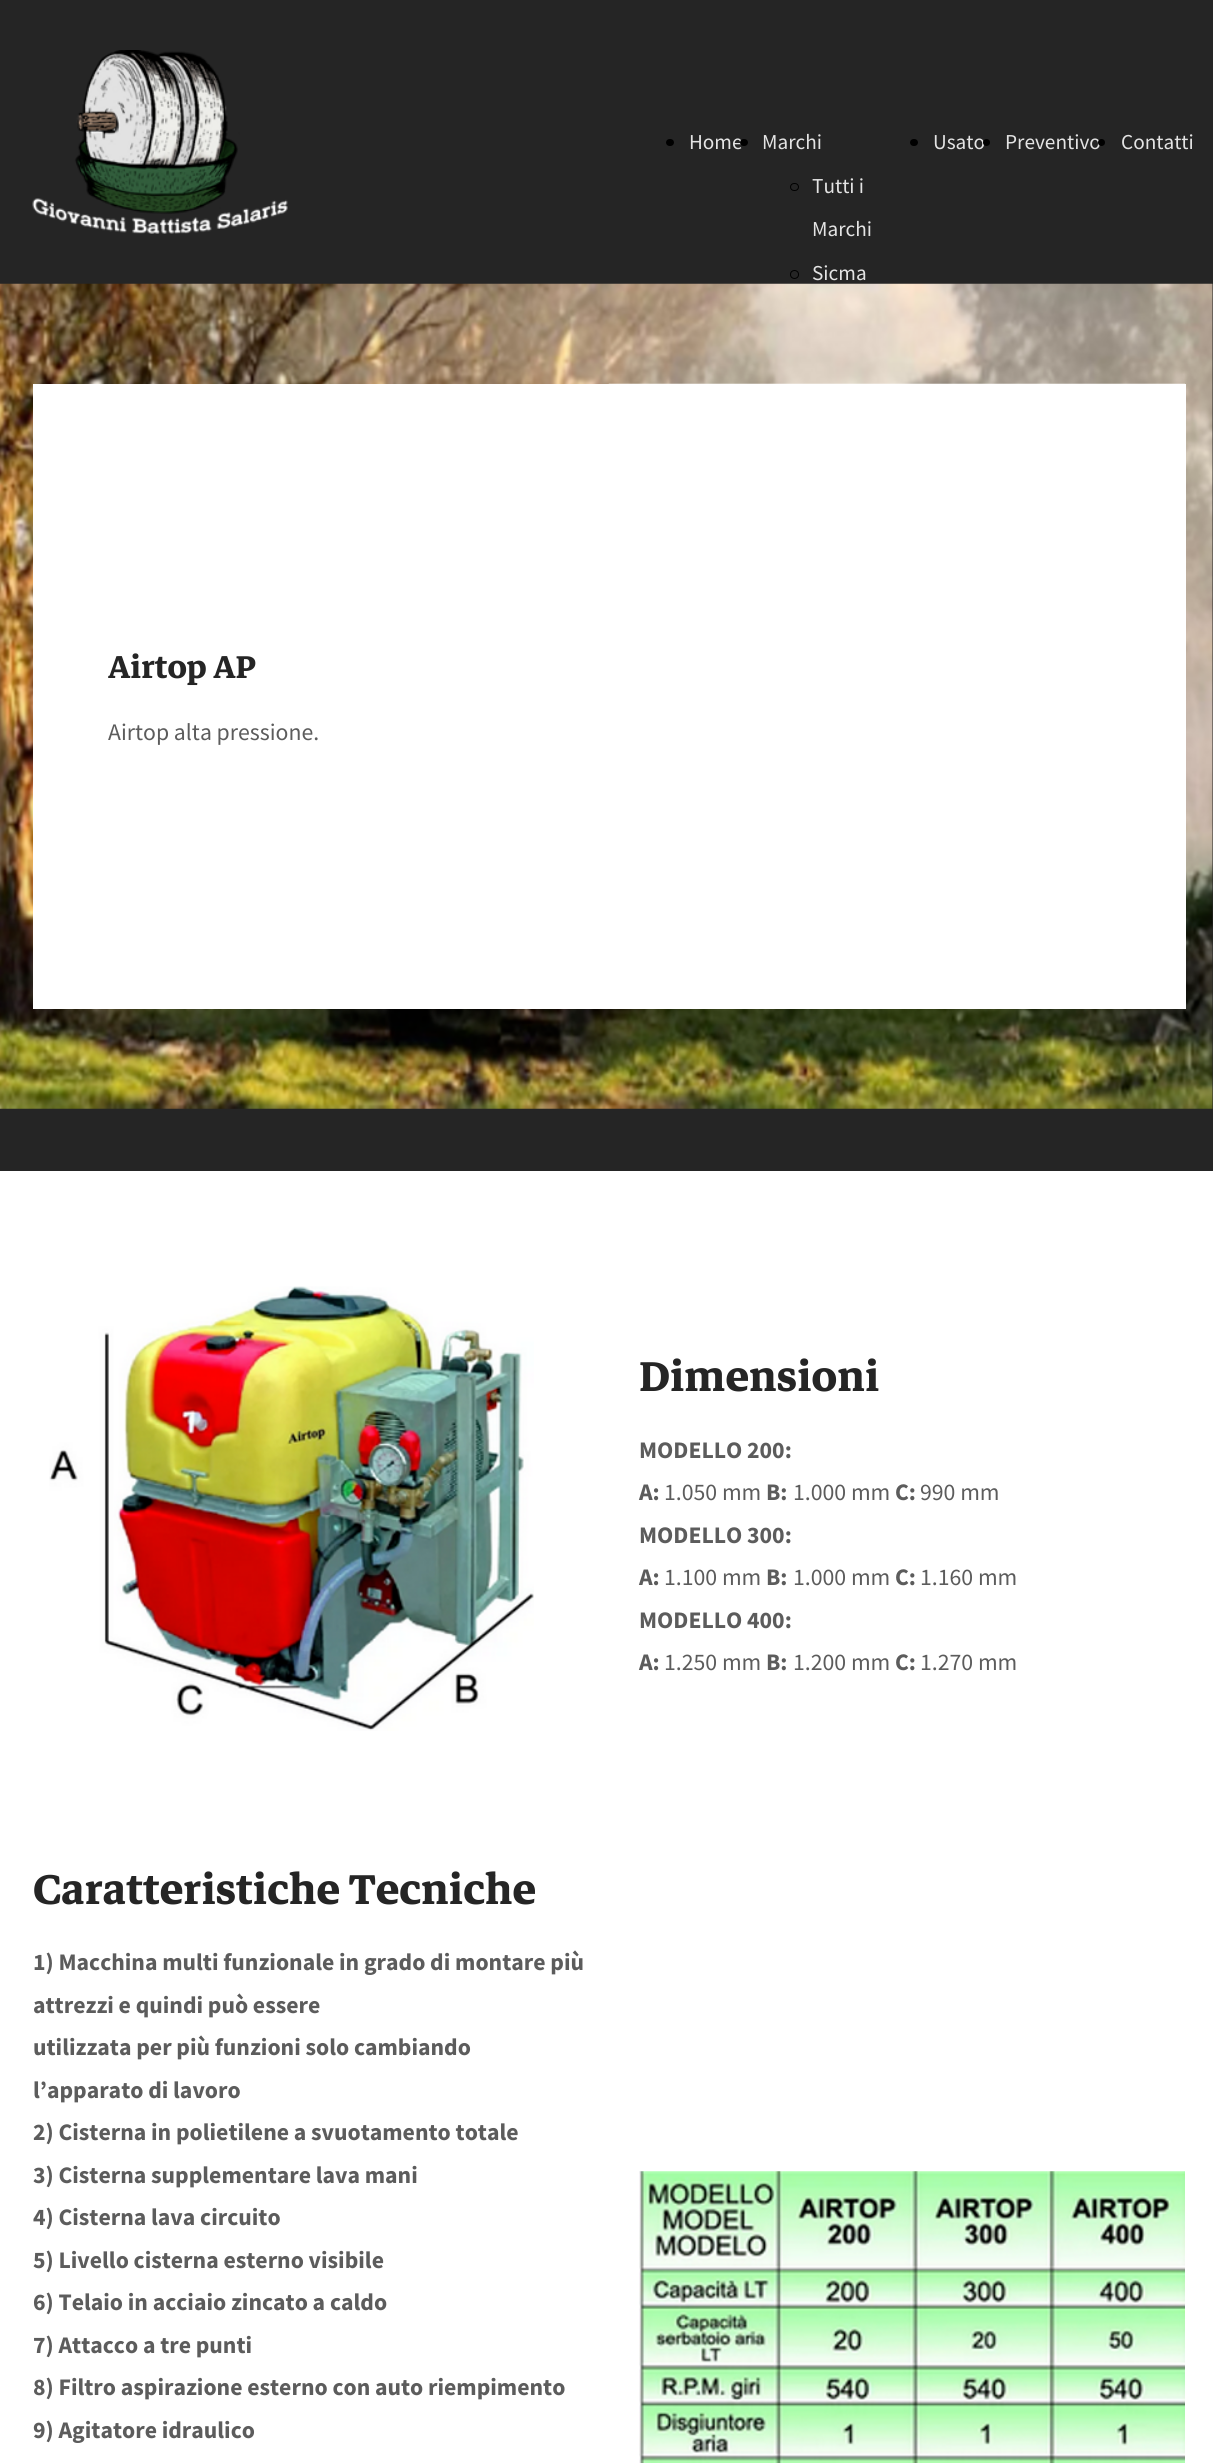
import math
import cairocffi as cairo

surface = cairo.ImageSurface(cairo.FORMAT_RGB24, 1224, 2463)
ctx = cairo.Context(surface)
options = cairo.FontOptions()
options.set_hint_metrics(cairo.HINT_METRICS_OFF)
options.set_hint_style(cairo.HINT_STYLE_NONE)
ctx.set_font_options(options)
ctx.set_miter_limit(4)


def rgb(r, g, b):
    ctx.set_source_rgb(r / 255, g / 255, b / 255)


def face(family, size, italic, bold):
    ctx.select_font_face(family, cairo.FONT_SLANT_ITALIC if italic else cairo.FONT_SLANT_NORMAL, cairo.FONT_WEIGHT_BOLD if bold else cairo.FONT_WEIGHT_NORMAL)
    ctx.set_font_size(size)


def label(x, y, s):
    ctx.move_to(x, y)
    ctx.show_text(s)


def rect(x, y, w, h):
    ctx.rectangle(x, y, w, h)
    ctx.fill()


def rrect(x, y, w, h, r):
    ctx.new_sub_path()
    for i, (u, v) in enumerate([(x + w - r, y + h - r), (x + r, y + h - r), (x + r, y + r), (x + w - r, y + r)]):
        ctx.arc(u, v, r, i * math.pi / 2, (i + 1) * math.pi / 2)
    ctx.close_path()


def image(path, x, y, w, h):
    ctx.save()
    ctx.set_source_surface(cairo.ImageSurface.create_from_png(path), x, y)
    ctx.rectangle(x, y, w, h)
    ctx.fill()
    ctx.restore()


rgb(255, 255, 255)
ctx.paint()
rgb(37, 37, 37)
rect(0, 0, 1213, 1171)
image('image0.png', 32, 50, 256, 184)
rgb(0, 0, 0)
rrect(666, 139, 8, 7, 3.5)
ctx.fill()
face('Source Sans Pro', 21.25, 0, 0)
rgb(228, 228, 228)
label(689, 149, 'Home')
rgb(0, 0, 0)
rrect(740, 139, 8, 7, 3.5)
ctx.fill()
rgb(228, 228, 228)
label(762, 149, 'Marchi')
rrect(790.5, 183.5, 8, 7, 3.5)
rgb(0, 0, 0)
ctx.set_line_width(1)
ctx.stroke()
rgb(228, 228, 228)
label(812, 193, 'Tutti i')
label(812, 236, 'Marchi')
ctx.new_path()
ctx.arc(794.5, 274.5, 4, 0, 2 * math.pi)
rgb(0, 0, 0)
ctx.stroke()
rgb(228, 228, 228)
label(812, 280, 'Sicma')
rgb(0, 0, 0)
rrect(910, 139, 8, 7, 3.5)
ctx.fill()
rgb(228, 228, 228)
label(933, 149, 'Usato')
rgb(0, 0, 0)
ctx.new_path()
ctx.arc(986.5, 142.5, 3.5, 0, 2 * math.pi)
ctx.fill()
rgb(228, 228, 228)
label(1005, 149, 'Preventivo')
rgb(0, 0, 0)
ctx.new_path()
ctx.arc(1101.5, 142.5, 3.5, 0, 2 * math.pi)
ctx.fill()
rgb(228, 228, 228)
label(1121, 149, 'Contatti')
image('image1.png', 0, 283, 1213, 826)
image('image2.png', 608, 383, 577, 1)
rgb(255, 255, 255)
rect(33, 384, 1153, 625)
face('Markazi Text', 45, 0, 1)
rgb(37, 37, 37)
label(108, 678, 'Airtop AP')
face('Source Sans Pro', 23.75, 0, 0)
rgb(92, 92, 92)
label(108, 740, 'Airtop alta pressione.')
image('image3.png', 49, 1286, 485, 445)
face('Markazi Text', 59.5, 0, 1)
rgb(37, 37, 37)
label(639, 1391, 'Dimensioni')
face('Source Sans Pro', 23.75, 0, 1)
rgb(92, 92, 92)
label(639, 1458, 'MODELLO 200:')
label(639, 1500, 'A:')
face('Source Sans Pro', 23.75, 0, 0)
label(664, 1500, '1.050 mm')
face('Source Sans Pro', 23.75, 0, 1)
label(766, 1500, 'B:')
face('Source Sans Pro', 23.75, 0, 0)
label(793, 1500, '1.000 mm')
face('Source Sans Pro', 23.75, 0, 1)
label(895, 1500, 'C:')
face('Source Sans Pro', 23.75, 0, 0)
label(920, 1500, '990 mm')
face('Source Sans Pro', 23.75, 0, 1)
label(639, 1543, 'MODELLO 300:')
label(639, 1585, 'A:')
face('Source Sans Pro', 23.75, 0, 0)
label(664, 1585, '1.100 mm')
face('Source Sans Pro', 23.75, 0, 1)
label(766, 1585, 'B:')
face('Source Sans Pro', 23.75, 0, 0)
label(793, 1585, '1.000 mm')
face('Source Sans Pro', 23.75, 0, 1)
label(895, 1585, 'C:')
face('Source Sans Pro', 23.75, 0, 0)
label(920, 1585, '1.160 mm')
face('Source Sans Pro', 23.75, 0, 1)
label(639, 1628, 'MODELLO 400:')
label(639, 1670, 'A:')
face('Source Sans Pro', 23.75, 0, 0)
label(664, 1670, '1.250 mm')
face('Source Sans Pro', 23.75, 0, 1)
label(766, 1670, 'B:')
face('Source Sans Pro', 23.75, 0, 0)
label(793, 1670, '1.200 mm')
face('Source Sans Pro', 23.75, 0, 1)
label(895, 1670, 'C:')
face('Source Sans Pro', 23.75, 0, 0)
label(920, 1670, '1.270 mm')
face('Markazi Text', 59.5, 0, 1)
rgb(37, 37, 37)
label(33, 1904, 'Caratteristiche Tecniche')
face('Source Sans Pro', 23.75, 0, 1)
rgb(92, 92, 92)
label(33, 1970, '1) Macchina multi funzionale in grado di montare più')
label(33, 2013, 'attrezzi e quindi può essere')
label(33, 2055, 'utilizzata per più funzioni solo cambiando')
label(33, 2098, 'l’apparato di lavoro')
label(33, 2140, '2) Cisterna in polietilene a svuotamento totale')
label(33, 2183, '3) Cisterna supplementare lava mani')
label(33, 2225, '4) Cisterna lava circuito')
label(33, 2268, '5) Livello cisterna esterno visibile')
label(33, 2310, '6) Telaio in acciaio zincato a caldo')
label(33, 2353, '7) Attacco a tre punti')
label(33, 2395, '8) Filtro aspirazione esterno con auto riempimento')
label(33, 2438, '9) Agitatore idraulico')
image('image4.png', 639, 2171, 546, 292)
surface.write_to_png('render.png')
